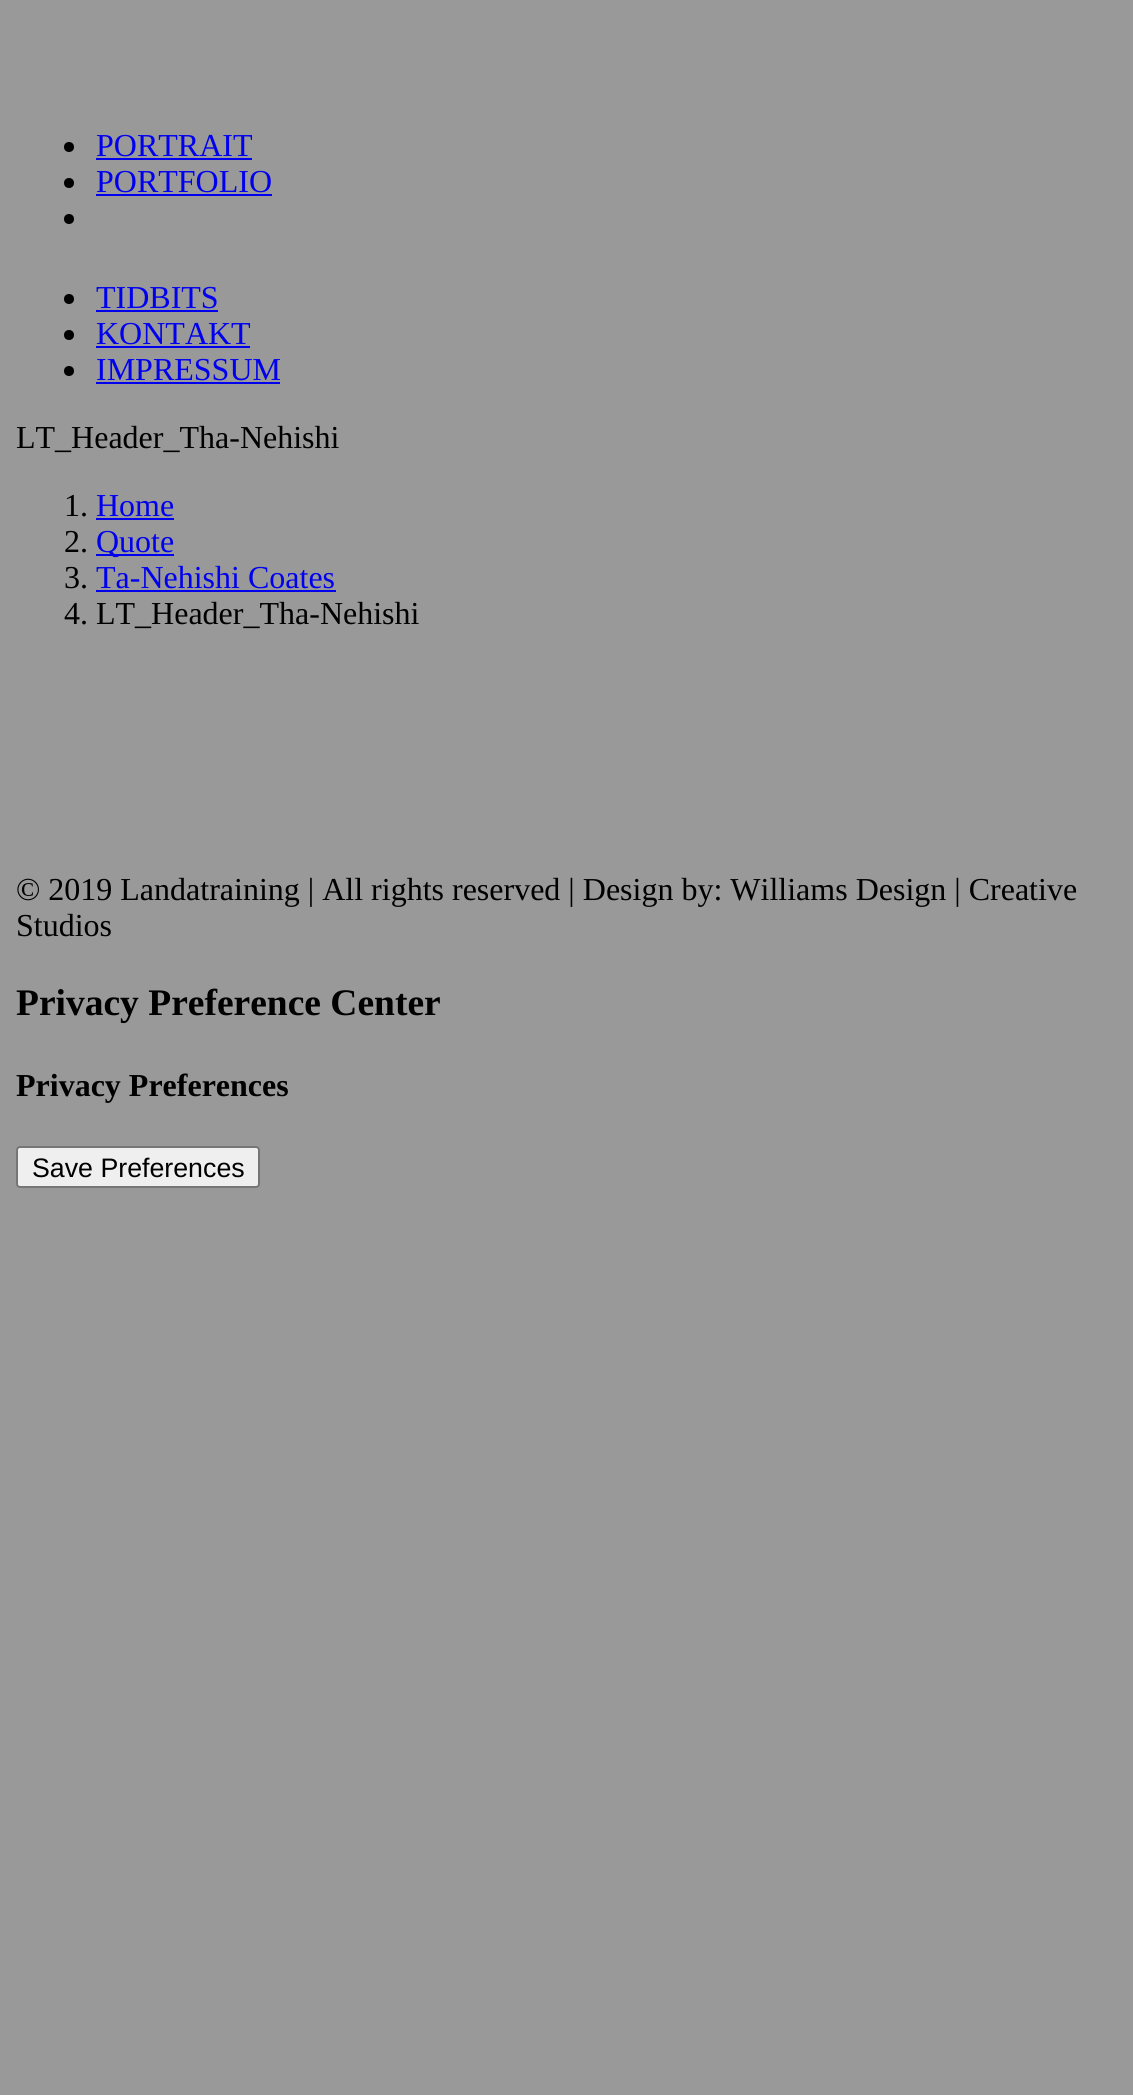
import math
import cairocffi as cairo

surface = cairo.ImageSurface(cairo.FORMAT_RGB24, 1133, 2095)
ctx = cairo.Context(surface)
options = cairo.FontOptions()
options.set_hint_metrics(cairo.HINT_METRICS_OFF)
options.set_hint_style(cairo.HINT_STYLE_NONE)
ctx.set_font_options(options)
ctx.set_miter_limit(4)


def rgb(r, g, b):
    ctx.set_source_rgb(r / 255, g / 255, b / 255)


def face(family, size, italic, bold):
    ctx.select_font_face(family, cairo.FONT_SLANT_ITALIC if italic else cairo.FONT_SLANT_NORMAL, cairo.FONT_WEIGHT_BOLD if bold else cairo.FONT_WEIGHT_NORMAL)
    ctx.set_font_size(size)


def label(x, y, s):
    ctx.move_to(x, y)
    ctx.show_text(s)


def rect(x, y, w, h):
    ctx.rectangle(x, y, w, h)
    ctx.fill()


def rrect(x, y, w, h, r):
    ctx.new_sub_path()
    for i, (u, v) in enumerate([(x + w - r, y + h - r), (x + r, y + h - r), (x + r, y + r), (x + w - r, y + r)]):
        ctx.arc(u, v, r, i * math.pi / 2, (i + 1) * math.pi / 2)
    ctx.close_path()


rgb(153, 153, 153)
ctx.paint()
rgb(0, 0, 0)
ctx.arc(69, 147, 5, 0, 2 * math.pi)
ctx.fill()
face('Liberation Serif', 32, 0, 0)
rgb(0, 0, 238)
label(96, 156, 'PORTRAIT')
rect(96, 158, 156, 2)
rgb(0, 0, 0)
ctx.new_path()
ctx.arc(69, 183, 5, 0, 2 * math.pi)
ctx.fill()
rgb(0, 0, 238)
label(96, 192, 'PORTFOLIO')
rect(96, 194, 176, 2)
rgb(0, 0, 0)
ctx.new_path()
ctx.arc(69, 219, 5, 0, 2 * math.pi)
ctx.fill()
ctx.arc(69, 299, 5, 0, 2 * math.pi)
ctx.fill()
rgb(0, 0, 238)
label(96, 308, 'TIDBITS')
rect(96, 310, 122, 2)
rgb(0, 0, 0)
ctx.new_path()
ctx.arc(69, 335, 5, 0, 2 * math.pi)
ctx.fill()
rgb(0, 0, 238)
label(96, 344, 'KONTAKT')
rect(96, 346, 154, 2)
rgb(0, 0, 0)
ctx.new_path()
ctx.arc(69, 371, 5, 0, 2 * math.pi)
ctx.fill()
rgb(0, 0, 238)
label(96, 380, 'IMPRESSUM')
rect(96, 382, 184, 2)
rgb(0, 0, 0)
label(16, 448, 'LT_Header_Tha-Nehishi')
label(64, 516, '1.')
rgb(0, 0, 238)
label(96, 516, 'Home')
rect(96, 518, 78, 2)
rgb(0, 0, 0)
label(64, 552, '2.')
rgb(0, 0, 238)
rect(96, 554, 78, 2)
label(96, 552, 'Quote')
rgb(0, 0, 0)
label(64, 588, '3.')
rgb(0, 0, 238)
label(96, 588, 'Ta-Nehishi Coates')
rect(96, 590, 240, 2)
rgb(0, 0, 0)
label(64, 624, '4. LT_Header_Tha-Nehishi')
label(16, 900, '© 2019 Landatraining | All rights reserved | Design by: Williams Design | Creative')
label(16, 936, 'Studios')
face('Liberation Serif', 37.5, 0, 1)
label(16, 1015, 'Privacy Preference Center')
face('Liberation Serif', 32, 0, 1)
label(16, 1096, 'Privacy Preferences')
rgb(239, 239, 239)
rrect(17, 1147, 242, 40, 3)
ctx.fill_preserve()
rgb(118, 118, 118)
ctx.stroke()
face('Liberation Sans', 26.75, 0, 0)
rgb(0, 0, 0)
label(32, 1177, 'Save Preferences')
surface.write_to_png('render.png')
